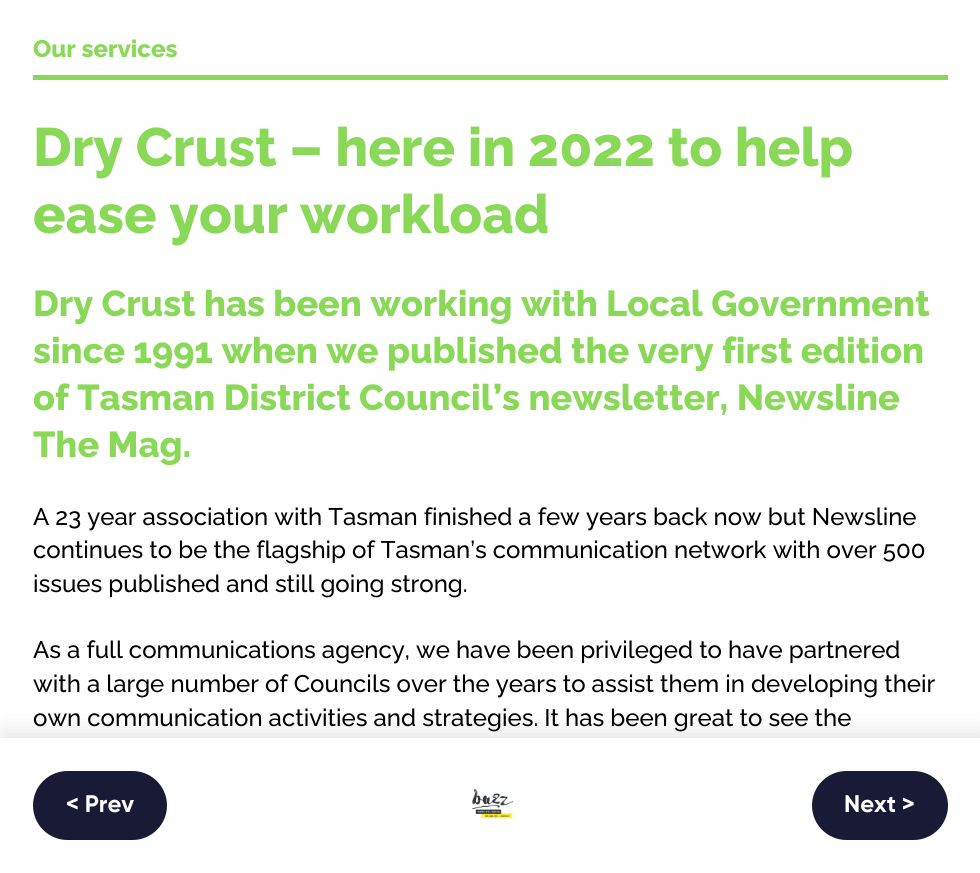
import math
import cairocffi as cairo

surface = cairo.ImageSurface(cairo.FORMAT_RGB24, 980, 873)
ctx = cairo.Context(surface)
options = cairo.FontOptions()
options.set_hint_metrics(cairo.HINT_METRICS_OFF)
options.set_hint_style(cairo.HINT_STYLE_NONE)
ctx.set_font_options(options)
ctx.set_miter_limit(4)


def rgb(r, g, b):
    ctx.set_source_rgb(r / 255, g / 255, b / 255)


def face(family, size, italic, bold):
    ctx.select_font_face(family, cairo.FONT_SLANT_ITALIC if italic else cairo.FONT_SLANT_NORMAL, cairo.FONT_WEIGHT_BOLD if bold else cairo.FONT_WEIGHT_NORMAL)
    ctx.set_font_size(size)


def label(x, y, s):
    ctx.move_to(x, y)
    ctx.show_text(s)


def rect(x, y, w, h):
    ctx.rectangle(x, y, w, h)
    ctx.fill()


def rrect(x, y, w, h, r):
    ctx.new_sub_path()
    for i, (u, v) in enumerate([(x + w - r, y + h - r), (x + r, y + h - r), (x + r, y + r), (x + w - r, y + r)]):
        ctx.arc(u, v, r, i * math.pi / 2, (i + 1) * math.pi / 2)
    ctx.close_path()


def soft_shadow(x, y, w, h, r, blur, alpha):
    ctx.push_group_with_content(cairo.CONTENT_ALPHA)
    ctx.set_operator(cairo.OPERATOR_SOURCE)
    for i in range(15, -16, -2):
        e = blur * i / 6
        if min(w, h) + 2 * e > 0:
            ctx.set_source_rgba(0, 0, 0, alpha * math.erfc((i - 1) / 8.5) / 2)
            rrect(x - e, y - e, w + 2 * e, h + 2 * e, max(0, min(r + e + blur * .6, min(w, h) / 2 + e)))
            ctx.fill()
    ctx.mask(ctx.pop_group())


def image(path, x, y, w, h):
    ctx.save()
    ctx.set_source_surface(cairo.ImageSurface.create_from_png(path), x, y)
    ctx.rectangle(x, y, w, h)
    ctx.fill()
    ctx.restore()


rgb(255, 255, 255)
ctx.paint()
face('Raleway ExtraBold', 24, 0, 0)
rgb(137, 216, 88)
label(33, 57, 'Our services')
rect(33, 75, 915, 5)
face('Raleway ExtraBold', 54, 0, 0)
label(33, 166, 'Dry Crust – here in 2022 to help')
label(33, 233, 'ease your workload')
face('Raleway ExtraBold', 36, 0, 0)
label(33, 316, 'Dry Crust has been working with Local Government')
label(33, 363, 'since 1991 when we published the very first edition')
label(33, 410, 'of Tasman District Council’s newsletter, Newsline')
label(33, 457, 'The Mag.')
face('Raleway Medium', 24, 0, 0)
rgb(0, 0, 0)
label(33, 525, 'A 23 year association with Tasman finished a few years back now but Newsline')
label(33, 558, 'continues to be the flagship of Tasman’s communication network with over 500')
label(33, 592, 'issues published and still going strong.')
label(33, 658, 'As a full communications agency, we have been privileged to have partnered')
label(33, 692, 'with a large number of Councils over the years to assist them in developing their')
label(33, 726, 'own communication activities and strategies. It has been great to see the')
rgb(0, 0, 0)
soft_shadow(3, 731, 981, 135, 0, 11, 0.1)
rgb(255, 255, 255)
rect(0, 738, 980, 135)
rgb(24, 26, 54)
rrect(33, 771, 134, 69, 34.5)
ctx.fill()
face('Gilroy', 24, 0, 0)
rgb(255, 255, 255)
label(66, 812, '< Prev')
image('image0.png', 472, 789, 41, 30)
rgb(24, 26, 54)
rrect(812, 771, 136, 69, 34.5)
ctx.fill()
rgb(255, 255, 255)
label(844, 812, 'Next >')
surface.write_to_png('render.png')
